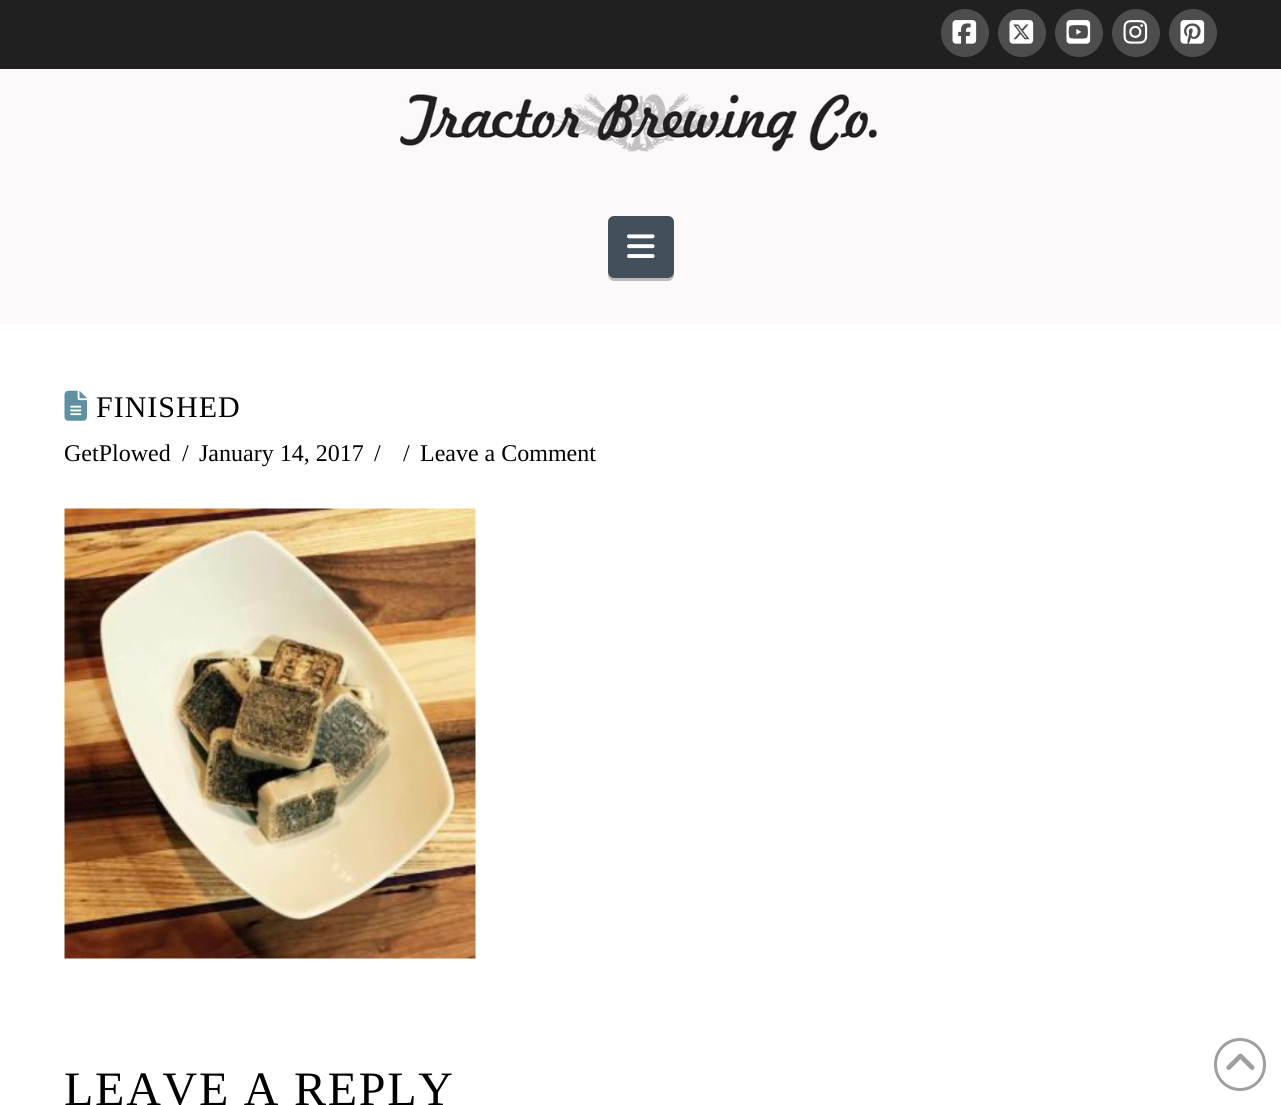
import math
import cairocffi as cairo

surface = cairo.ImageSurface(cairo.FORMAT_RGB24, 1281, 1105)
ctx = cairo.Context(surface)
options = cairo.FontOptions()
options.set_hint_metrics(cairo.HINT_METRICS_OFF)
options.set_hint_style(cairo.HINT_STYLE_NONE)
ctx.set_font_options(options)
ctx.set_miter_limit(4)


def rgb(r, g, b):
    ctx.set_source_rgb(r / 255, g / 255, b / 255)


def face(family, size, italic, bold):
    ctx.select_font_face(family, cairo.FONT_SLANT_ITALIC if italic else cairo.FONT_SLANT_NORMAL, cairo.FONT_WEIGHT_BOLD if bold else cairo.FONT_WEIGHT_NORMAL)
    ctx.set_font_size(size)


def label(x, y, s):
    ctx.move_to(x, y)
    ctx.show_text(s)


def tracked(x, y, s, letter, word):
    ctx.move_to(x, y)
    for ch in s:
        ctx.show_text(ch)
        ctx.rel_move_to(letter + word * (ch == ' '), 0)


def rect(x, y, w, h):
    ctx.rectangle(x, y, w, h)
    ctx.fill()


def rrect(x, y, w, h, r):
    ctx.new_sub_path()
    for i, (u, v) in enumerate([(x + w - r, y + h - r), (x + r, y + h - r), (x + r, y + r), (x + w - r, y + r)]):
        ctx.arc(u, v, r, i * math.pi / 2, (i + 1) * math.pi / 2)
    ctx.close_path()


def image(path, x, y, w, h):
    ctx.save()
    ctx.set_source_surface(cairo.ImageSurface.create_from_png(path), x, y)
    ctx.rectangle(x, y, w, h)
    ctx.fill()
    ctx.restore()


rgb(255, 255, 255)
ctx.paint()
rgb(32, 32, 32)
rect(0, 0, 1281, 69)
rgb(77, 77, 77)
ctx.arc(965, 33, 24, 0, 2 * math.pi)
ctx.fill()
image('image0.png', 952, 20, 25, 24)
ctx.arc(1022, 33, 24, 0, 2 * math.pi)
ctx.fill()
image('image1.png', 1009, 20, 25, 24)
ctx.arc(1079, 33, 24, 0, 2 * math.pi)
ctx.fill()
image('image2.png', 1066, 20, 25, 24)
ctx.arc(1136, 33, 24, 0, 2 * math.pi)
ctx.fill()
image('image3.png', 1123, 20, 25, 24)
ctx.arc(1193, 33, 24, 0, 2 * math.pi)
ctx.fill()
image('image4.png', 1180, 20, 25, 24)
rgb(253, 248, 250)
rect(0, 69, 1281, 255)
image('image5.png', 399, 93, 479, 59)
rgb(190, 186, 188)
ctx.new_path()
ctx.move_to(608, 274)
ctx.line_to(608, 275)
ctx.curve_to(608, 278, 611, 281, 614, 281)
ctx.line_to(668, 281)
ctx.curve_to(671, 281, 674, 278, 674, 275)
ctx.line_to(674, 225)
ctx.line_to(674, 223)
ctx.line_to(674, 272)
ctx.curve_to(674, 275, 671, 278, 668, 278)
ctx.line_to(614, 278)
ctx.curve_to(611, 278, 609, 276, 608, 274)
ctx.close_path()
ctx.fill()
rgb(67, 79, 91)
rrect(608, 216, 66, 62, 6)
ctx.fill()
image('image6.png', 627, 234, 28, 24)
image('image7.png', 64, 390, 23, 31)
face('Liberation Serif', 30, 0, 0)
rgb(0, 0, 0)
tracked(96, 417, 'FINISHED', 1, 0)
face('Liberation Serif', 24, 0, 0)
label(64, 461, 'GetPlowed')
label(182, 461, '/')
label(199, 461, 'January 14, 2017')
label(374, 461, '/')
label(403, 461, '/')
label(420, 461, 'Leave a Comment')
image('image8.png', 64, 508, 412, 451)
face('Liberation Serif', 48, 0, 0)
tracked(64, 1105, 'LEAVE A REPLY', 1.75, 0)
rrect(1215.5, 1039.5, 49, 50, 24.5)
rgb(159, 159, 159)
ctx.set_line_width(3)
ctx.stroke()
image('image9.png', 1226, 1053, 29, 17)
surface.write_to_png('render.png')
